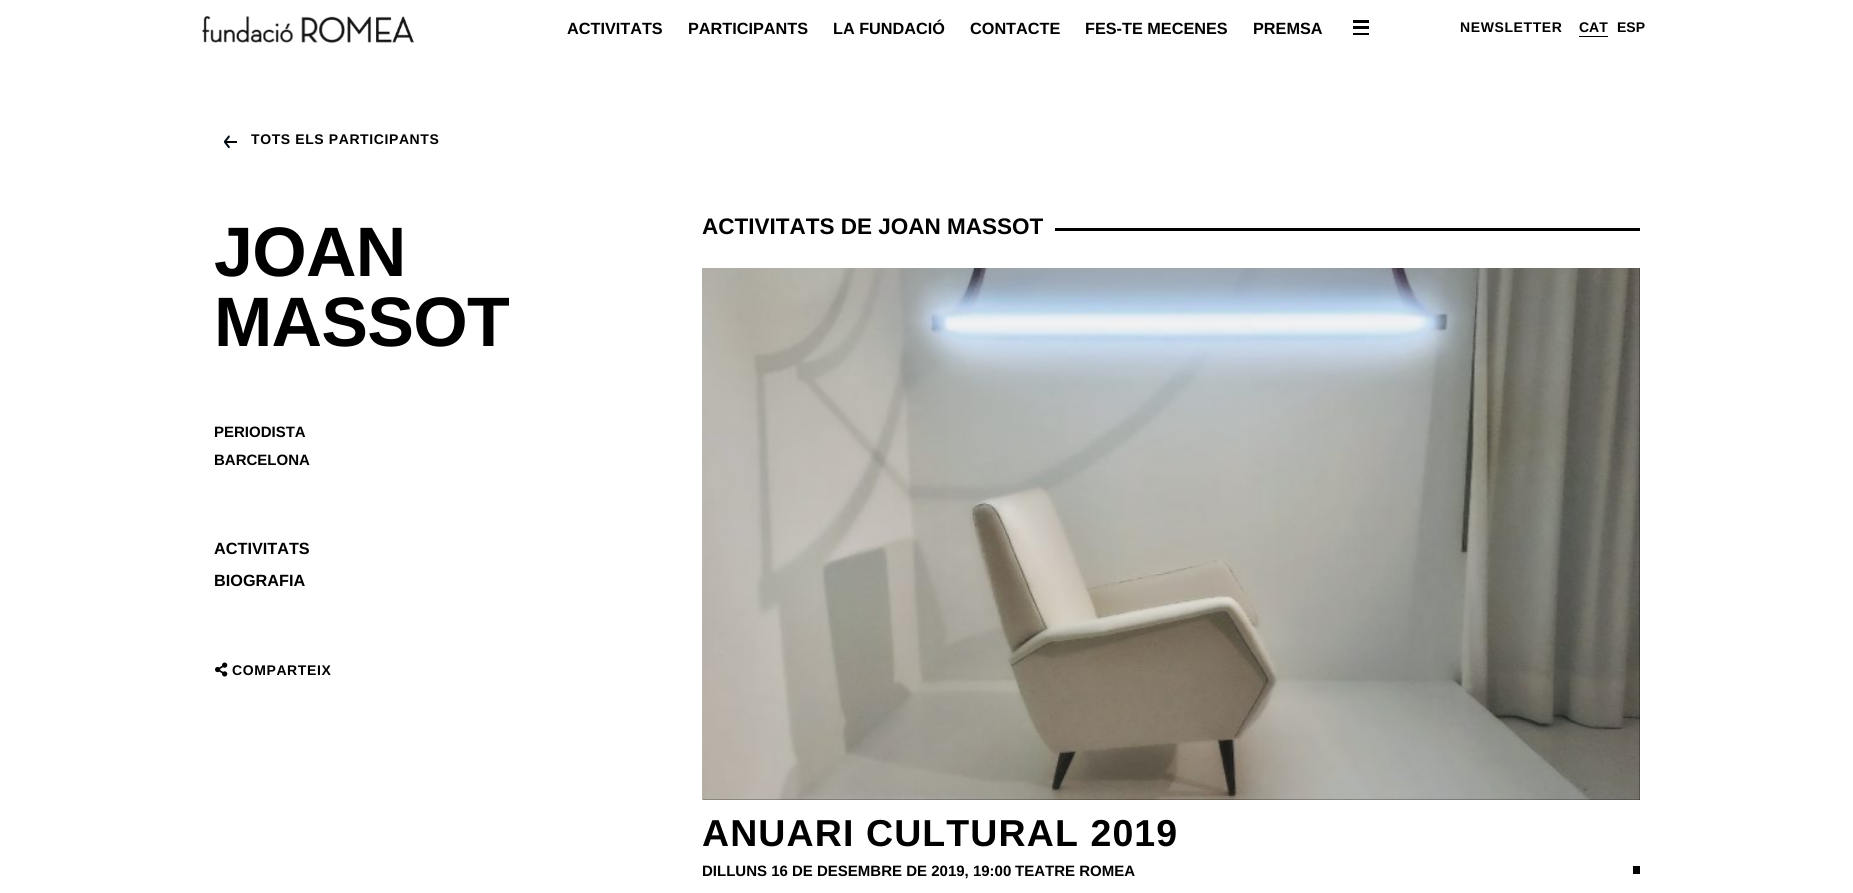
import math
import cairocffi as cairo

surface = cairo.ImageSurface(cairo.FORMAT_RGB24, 1853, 893)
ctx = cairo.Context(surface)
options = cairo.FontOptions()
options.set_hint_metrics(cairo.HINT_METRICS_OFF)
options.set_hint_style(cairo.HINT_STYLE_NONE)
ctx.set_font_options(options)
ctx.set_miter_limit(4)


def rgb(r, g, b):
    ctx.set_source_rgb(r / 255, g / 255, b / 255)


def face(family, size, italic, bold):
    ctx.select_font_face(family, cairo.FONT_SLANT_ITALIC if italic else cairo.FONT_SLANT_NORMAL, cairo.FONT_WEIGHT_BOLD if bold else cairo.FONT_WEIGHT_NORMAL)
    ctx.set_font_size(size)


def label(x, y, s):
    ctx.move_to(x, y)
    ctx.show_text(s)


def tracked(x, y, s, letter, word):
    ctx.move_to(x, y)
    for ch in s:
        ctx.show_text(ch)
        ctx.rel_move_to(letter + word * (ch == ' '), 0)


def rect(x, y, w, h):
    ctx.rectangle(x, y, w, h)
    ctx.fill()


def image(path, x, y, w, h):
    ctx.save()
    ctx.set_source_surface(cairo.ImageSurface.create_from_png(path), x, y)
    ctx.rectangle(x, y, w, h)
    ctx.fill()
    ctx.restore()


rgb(255, 255, 255)
ctx.paint()
image('image0.png', 202, 15, 212, 28)
face('Liberation Sans', 16.25, 0, 1)
rgb(0, 0, 0)
label(567, 34, 'ACTIVITATS')
label(688, 34, 'PARTICIPANTS')
label(833, 34, 'LA FUNDACIÓ')
label(970, 34, 'CONTACTE')
label(1085, 34, 'FES-TE MECENES')
label(1253, 34, 'PREMSA')
rect(1353, 20, 16, 3)
rect(1353, 26, 16, 3)
rect(1353, 33, 16, 2)
face('Liberation Sans', 14, 0, 1)
tracked(1460, 32, 'NEWSLETTER', 0.6, 0)
label(1579, 32, 'CAT')
rect(1579, 36, 29, 1)
label(1617, 32, 'ESP')
image('image1.png', 224, 135, 13, 14)
tracked(251, 144, 'TOTS ELS PARTICIPANTS', 0.6, 0)
face('Liberation Sans', 70, 0, 1)
tracked(214, 276, 'JOAN', -0.75, 0)
tracked(214, 346, 'MASSOT', -0.75, 0)
face('Liberation Sans', 15, 0, 1)
label(214, 437, 'PERIODISTA')
label(214, 465, 'BARCELONA')
face('Liberation Sans', 16.25, 0, 1)
label(214, 554, 'ACTIVITATS')
label(214, 586, 'BIOGRAFIA')
image('image2.png', 215, 662, 13, 15)
face('Liberation Sans', 14, 0, 1)
tracked(232, 675, 'COMPARTEIX', 0.6, 0)
face('Liberation Sans', 22.5, 0, 1)
label(702, 234, 'ACTIVITATS DE JOAN MASSOT')
rect(1055, 228, 585, 3)
rect(703, 268, 937, 532)
image('image3.png', 702, 268, 938, 532)
face('Liberation Sans', 37.5, 0, 1)
tracked(702, 846, 'ANUARI CULTURAL 2019', 1.1, 0)
ctx.save()
ctx.rectangle(703, 268, 937, 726)
ctx.clip()
face('Liberation Sans', 15, 0, 1)
label(702, 876, 'DILLUNS 16 DE DESEMBRE DE 2019, 19:00')
ctx.restore()
face('Liberation Sans', 15, 0, 1)
label(1015, 876, 'TEATRE ROMEA')
rect(1633, 866, 7, 8)
surface.write_to_png('render.png')
